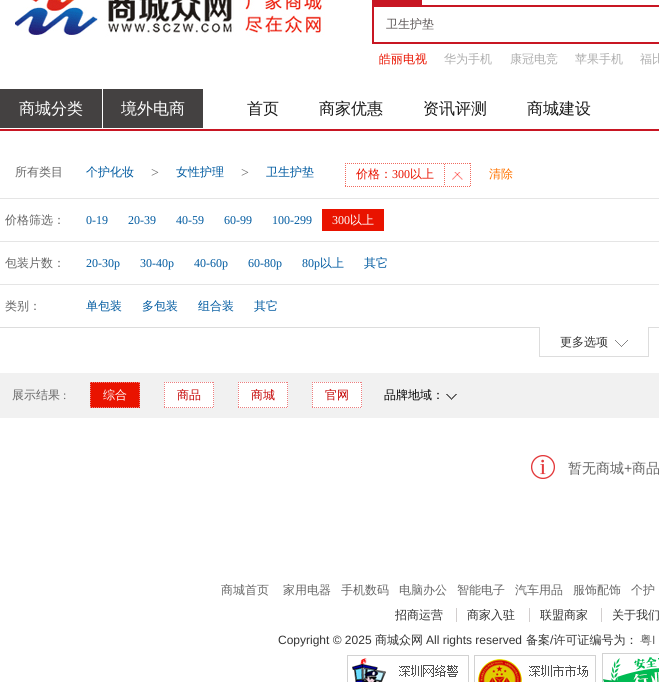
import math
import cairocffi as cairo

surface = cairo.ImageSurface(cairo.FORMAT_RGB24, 659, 682)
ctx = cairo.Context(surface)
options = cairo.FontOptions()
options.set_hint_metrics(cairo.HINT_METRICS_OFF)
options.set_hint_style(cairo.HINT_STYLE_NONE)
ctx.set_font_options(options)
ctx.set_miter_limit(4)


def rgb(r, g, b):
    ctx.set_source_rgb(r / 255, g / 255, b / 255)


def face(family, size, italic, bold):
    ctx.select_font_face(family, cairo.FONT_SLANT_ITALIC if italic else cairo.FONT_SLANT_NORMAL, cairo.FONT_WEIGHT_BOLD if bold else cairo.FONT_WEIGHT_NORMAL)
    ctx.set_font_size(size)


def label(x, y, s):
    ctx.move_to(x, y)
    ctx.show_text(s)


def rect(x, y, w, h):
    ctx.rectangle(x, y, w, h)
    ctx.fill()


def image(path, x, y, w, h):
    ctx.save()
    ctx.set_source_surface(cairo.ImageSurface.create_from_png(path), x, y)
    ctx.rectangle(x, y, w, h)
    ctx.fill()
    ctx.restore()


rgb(255, 255, 255)
ctx.paint()
image('image0.png', 15, 0, 310, 37)
rgb(200, 22, 35)
rect(372, 0, 50, 5)
ctx.rectangle(373, 6, 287, 37)
ctx.stroke()
face('WenQuanYi Zen Hei Medium', 12, 0, 0)
rgb(92, 86, 86)
label(386, 28, '卫生护垫')
rgb(233, 19, 0)
label(379, 63, '皓丽电视')
rgb(174, 174, 174)
label(444, 63, '华为手机')
label(510, 63, '康冠电竞')
label(575, 63, '苹果手机')
label(640, 63, '福比')
rgb(200, 22, 35)
rect(0, 129, 659, 2)
rgb(68, 65, 65)
rect(0, 89, 102, 39)
face('WenQuanYi Zen Hei Medium', 16, 0, 0)
rgb(255, 255, 255)
label(19, 114, '商城分类')
rgb(68, 65, 65)
rect(103, 89, 100, 39)
rgb(255, 255, 255)
label(121, 114, '境外电商')
rgb(24, 24, 24)
label(247, 114, '首页')
label(319, 114, '商家优惠')
label(423, 114, '资讯评测')
label(527, 114, '商城建设')
rgb(229, 229, 229)
rect(0, 198, 659, 1)
face('WenQuanYi Zen Hei Medium', 12, 0, 0)
rgb(102, 102, 102)
label(15, 176, '所有类目')
rgb(0, 90, 160)
label(86, 176, '个护化妆')
face('Liberation Serif', 14, 0, 0)
rgb(102, 102, 102)
label(151, 177, '>')
face('WenQuanYi Zen Hei Medium', 12, 0, 0)
rgb(0, 90, 160)
label(176, 176, '女性护理')
face('Liberation Serif', 14, 0, 0)
rgb(102, 102, 102)
label(241, 177, '>')
face('WenQuanYi Zen Hei Medium', 12, 0, 0)
rgb(0, 90, 160)
label(266, 176, '卫生护垫')
ctx.new_path()
ctx.move_to(345, 163.5)
ctx.line_to(471, 163.5)
rgb(241, 107, 95)
ctx.set_line_width(1)
ctx.set_dash([1, 1])
ctx.stroke()
ctx.new_path()
ctx.move_to(470.5, 163)
ctx.line_to(470.5, 187)
ctx.stroke()
ctx.new_path()
ctx.move_to(345, 186.5)
ctx.line_to(471, 186.5)
ctx.stroke()
ctx.new_path()
ctx.move_to(345.5, 163)
ctx.line_to(345.5, 187)
ctx.stroke()
rgb(233, 19, 0)
label(356, 178, '价格：')
face('Liberation Serif', 12, 0, 0)
label(392, 178, '300')
face('WenQuanYi Zen Hei Medium', 12, 0, 0)
label(410, 178, '以上')
image('image1.png', 452, 172, 11, 8)
ctx.new_path()
ctx.move_to(444.5, 164)
ctx.line_to(444.5, 186)
rgb(241, 107, 95)
ctx.stroke()
rgb(255, 115, 0)
label(489, 178, '清除')
rgb(229, 229, 229)
rect(0, 241, 659, 1)
rgb(102, 102, 102)
label(5, 224, '价格筛选：')
face('Liberation Serif', 12, 0, 0)
rgb(0, 90, 160)
label(86, 224, '0-19')
label(128, 224, '20-39')
label(176, 224, '40-59')
label(224, 224, '60-99')
label(272, 224, '100-299')
rgb(233, 19, 0)
rect(322, 209, 62, 22)
rgb(255, 255, 255)
label(332, 224, '300')
face('WenQuanYi Zen Hei Medium', 12, 0, 0)
label(350, 224, '以上')
rgb(229, 229, 229)
rect(0, 284, 659, 1)
rgb(102, 102, 102)
label(5, 267, '包装片数：')
face('Liberation Serif', 12, 0, 0)
rgb(0, 90, 160)
label(86, 267, '20-30p')
label(140, 267, '30-40p')
label(194, 267, '40-60p')
label(248, 267, '60-80p')
label(302, 267, '80p')
face('WenQuanYi Zen Hei Medium', 12, 0, 0)
label(320, 267, '以上')
label(364, 267, '其它')
rgb(102, 102, 102)
label(5, 310, '类别：')
rgb(0, 90, 160)
label(86, 310, '单包装')
label(142, 310, '多包装')
label(198, 310, '组合装')
label(254, 310, '其它')
rgb(221, 221, 221)
rect(0, 327, 659, 1)
rgb(255, 255, 255)
rect(540, 327, 108, 1)
rgb(221, 221, 221)
rect(648, 327, 1, 30)
rect(539, 356, 110, 1)
rect(539, 327, 1, 30)
rgb(51, 51, 51)
label(560, 346, '更多选项')
image('image2.png', 615, 340, 13, 7)
rgb(241, 241, 241)
rect(0, 373, 659, 45)
rgb(102, 102, 102)
label(12, 399, '展示结果')
face('Liberation Serif', 12, 0, 0)
label(63, 399, ':')
rgb(233, 19, 0)
rect(90, 382, 50, 26)
ctx.new_path()
ctx.move_to(90, 382.5)
ctx.line_to(140, 382.5)
ctx.move_to(139.5, 382)
ctx.line_to(139.5, 408)
ctx.move_to(90, 407.5)
ctx.line_to(140, 407.5)
ctx.move_to(90.5, 382)
ctx.line_to(90.5, 408)
rgb(237, 127, 128)
ctx.stroke()
face('WenQuanYi Zen Hei Medium', 12, 0, 0)
rgb(255, 255, 255)
label(103, 399, '综合')
rect(164, 382, 50, 26)
ctx.new_path()
ctx.move_to(164, 382.5)
ctx.line_to(214, 382.5)
ctx.move_to(213.5, 382)
ctx.line_to(213.5, 408)
ctx.move_to(164, 407.5)
ctx.line_to(214, 407.5)
ctx.move_to(164.5, 382)
ctx.line_to(164.5, 408)
rgb(237, 127, 128)
ctx.stroke()
rgb(196, 0, 0)
label(177, 399, '商品')
rgb(255, 255, 255)
rect(238, 382, 50, 26)
ctx.new_path()
ctx.move_to(238, 382.5)
ctx.line_to(288, 382.5)
ctx.move_to(287.5, 382)
ctx.line_to(287.5, 408)
ctx.move_to(238, 407.5)
ctx.line_to(288, 407.5)
ctx.move_to(238.5, 382)
ctx.line_to(238.5, 408)
rgb(237, 127, 128)
ctx.stroke()
rgb(196, 0, 0)
label(251, 399, '商城')
rgb(255, 255, 255)
rect(312, 382, 50, 26)
ctx.new_path()
ctx.move_to(312, 382.5)
ctx.line_to(362, 382.5)
ctx.move_to(361.5, 382)
ctx.line_to(361.5, 408)
ctx.move_to(312, 407.5)
ctx.line_to(362, 407.5)
ctx.move_to(312.5, 382)
ctx.line_to(312.5, 408)
rgb(237, 127, 128)
ctx.stroke()
rgb(196, 0, 0)
label(325, 399, '官网')
rgb(0, 0, 0)
label(384, 399, '品牌地域：')
image('image3.png', 446, 394, 11, 6)
image('image4.png', 531, 455, 24, 24)
face('WenQuanYi Zen Hei Medium', 14, 0, 0)
rgb(102, 102, 102)
label(568, 473, '暂无商城')
face('Liberation Sans', 14, 0, 0)
label(624, 473, '+')
face('WenQuanYi Zen Hei Medium', 14, 0, 0)
label(632, 473, '商品')
face('WenQuanYi Zen Hei Medium', 12, 0, 0)
label(221, 594, '商城首页')
label(283, 594, '家用电器')
label(341, 594, '手机数码')
label(399, 594, '电脑办公')
label(457, 594, '智能电子')
label(515, 594, '汽车用品')
label(573, 594, '服饰配饰')
label(631, 594, '个护')
rgb(51, 51, 51)
label(395, 619, '招商运营')
rgb(210, 206, 206)
rect(456, 608, 1, 14)
rgb(51, 51, 51)
label(467, 619, '商家入驻')
rgb(210, 206, 206)
rect(529, 608, 1, 14)
rgb(51, 51, 51)
label(540, 619, '联盟商家')
rgb(210, 206, 206)
rect(601, 608, 1, 14)
rgb(51, 51, 51)
label(612, 619, '关于我们')
face('Liberation Sans', 12, 0, 0)
label(278, 644, 'Copyright © 2025')
face('WenQuanYi Zen Hei Medium', 12, 0, 0)
label(375, 644, '商城众网')
face('Liberation Sans', 12, 0, 0)
label(426, 644, 'All rights reserved')
face('WenQuanYi Zen Hei Medium', 12, 0, 0)
label(526, 644, '备案 许可证编号为：')
rgb(102, 102, 102)
label(640, 644, '粤')
face('Liberation Sans', 12, 0, 0)
rgb(51, 51, 51)
label(550, 644, '/')
rgb(102, 102, 102)
label(652, 644, 'I')
image('image5.png', 347, 655, 122, 27)
image('image6.png', 474, 655, 122, 27)
image('image7.png', 603, 657, 56, 25)
ctx.rectangle(602.5, 653.5, 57, 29)
rgb(210, 210, 210)
ctx.set_dash([])
ctx.stroke()
surface.write_to_png('render.png')
